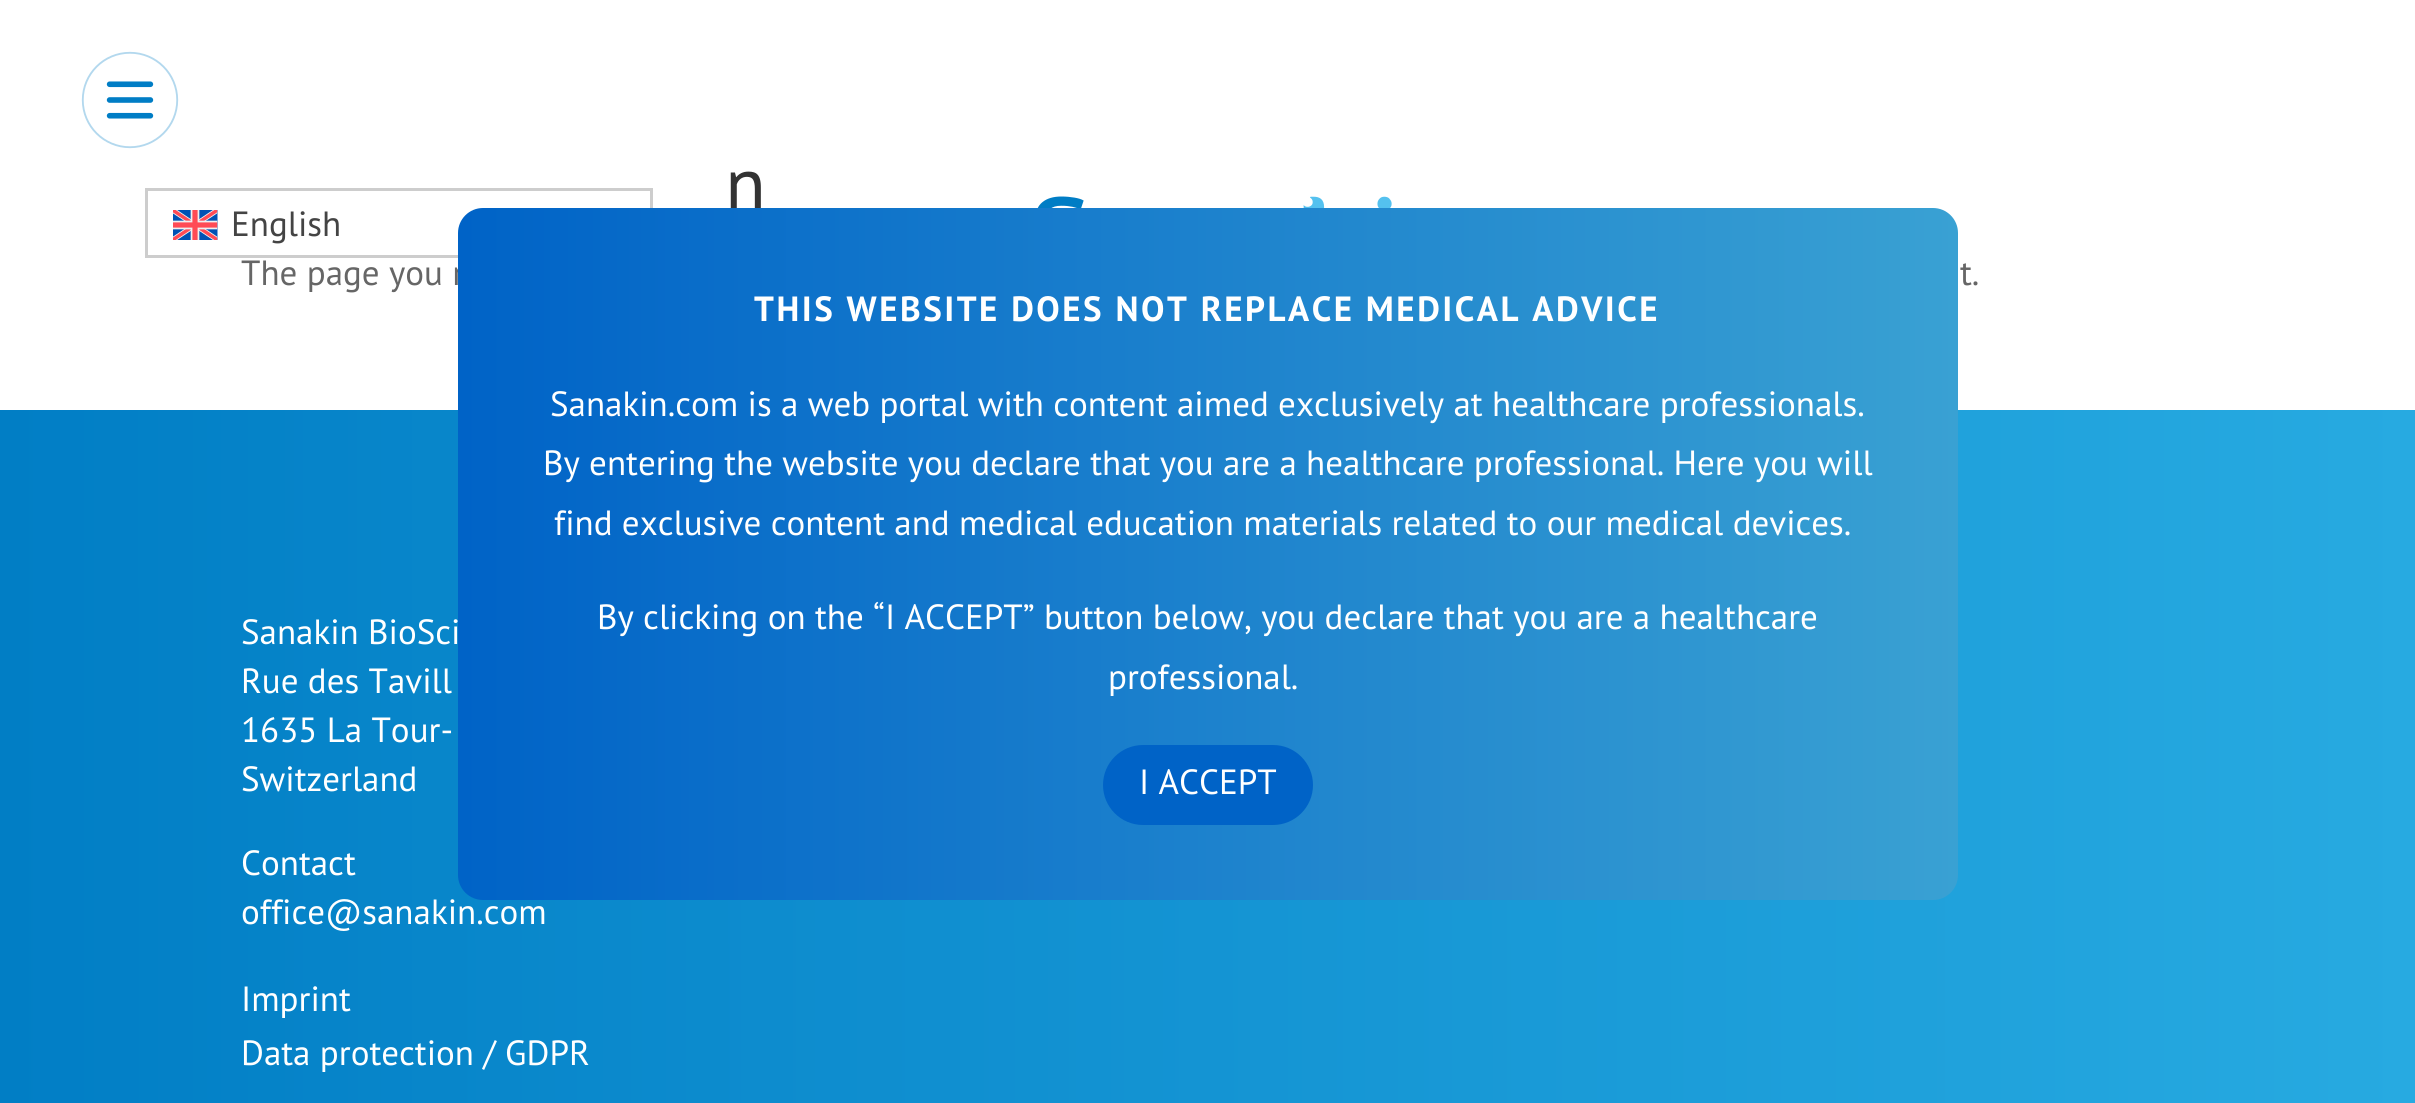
import math
import cairocffi as cairo

surface = cairo.ImageSurface(cairo.FORMAT_RGB24, 2415, 1103)
ctx = cairo.Context(surface)
options = cairo.FontOptions()
options.set_hint_metrics(cairo.HINT_METRICS_OFF)
options.set_hint_style(cairo.HINT_STYLE_NONE)
ctx.set_font_options(options)
ctx.set_miter_limit(4)


def rgb(r, g, b):
    ctx.set_source_rgb(r / 255, g / 255, b / 255)


def face(family, size, italic, bold):
    ctx.select_font_face(family, cairo.FONT_SLANT_ITALIC if italic else cairo.FONT_SLANT_NORMAL, cairo.FONT_WEIGHT_BOLD if bold else cairo.FONT_WEIGHT_NORMAL)
    ctx.set_font_size(size)


def label(x, y, s):
    ctx.move_to(x, y)
    ctx.show_text(s)


def tracked(x, y, s, letter, word):
    ctx.move_to(x, y)
    for ch in s:
        ctx.show_text(ch)
        ctx.rel_move_to(letter + word * (ch == ' '), 0)


def rect(x, y, w, h):
    ctx.rectangle(x, y, w, h)
    ctx.fill()


def rrect(x, y, w, h, r):
    ctx.new_sub_path()
    for i, (u, v) in enumerate([(x + w - r, y + h - r), (x + r, y + h - r), (x + r, y + r), (x + w - r, y + r)]):
        ctx.arc(u, v, r, i * math.pi / 2, (i + 1) * math.pi / 2)
    ctx.close_path()


def image(path, x, y, w, h):
    ctx.save()
    ctx.set_source_surface(cairo.ImageSurface.create_from_png(path), x, y)
    ctx.rectangle(x, y, w, h)
    ctx.fill()
    ctx.restore()


rgb(255, 255, 255)
ctx.paint()
face('PT Sans', 75, 0, 0)
rgb(51, 51, 51)
label(725, 210, 'n')
face('PT Sans', 35, 0, 0)
rgb(102, 102, 102)
label(241, 285, 'The page you r')
label(1960, 285, 't.')
gradient = cairo.LinearGradient(0, 893, 2415, 892)
gradient.add_color_stop_rgba(0, 0.004, 0.494, 0.773, 1)
gradient.add_color_stop_rgba(1, 0.153, 0.667, 0.882, 1)
ctx.set_source(gradient)
rect(0, 410, 2415, 693)
rgb(255, 255, 255)
label(241, 644, 'Sanakin BioSci')
label(241, 693, 'Rue des Tavill')
label(241, 742, '1635 La Tour-')
label(241, 791, 'Switzerland')
label(241, 875, 'Contact')
label(241, 924, 'office@sanakin.com')
label(241, 1011, 'Imprint')
label(241, 1065, 'Data protection / GDPR')
image('image0.png', 81, 51, 98, 98)
image('image1.png', 1037, 196, 355, 12)
ctx.rectangle(146.5, 189.5, 505, 67)
rgb(205, 205, 205)
ctx.set_line_width(3)
ctx.stroke()
image('image2.png', 173, 210, 45, 30)
rgb(68, 68, 68)
label(231, 236, 'English')
gradient = cairo.LinearGradient(458, 553, 1958, 553)
gradient.add_color_stop_rgba(0, 0, 0.388, 0.78, 1)
gradient.add_color_stop_rgba(1, 0.224, 0.631, 0.827, 1)
ctx.set_source(gradient)
rrect(458, 208, 1500, 692, 25)
ctx.fill()
face('PT Sans', 35, 0, 1)
rgb(255, 255, 255)
tracked(754, 321, 'THIS WEBSITE DOES NOT REPLACE MEDICAL ADVICE', 2.5, 0)
face('PT Sans', 35, 0, 0)
label(550, 416, 'Sanakin.com is a web portal with content aimed exclusively at healthcare professionals.')
label(543, 475, 'By entering the website you declare that you are a healthcare professional. Here you will')
label(554, 535, 'find exclusive content and medical education materials related to our medical devices.')
label(597, 629, 'By clicking on the “I ACCEPT” button below, you declare that you are a healthcare')
label(1108, 689, 'professional.')
rgb(0, 99, 199)
rrect(1103, 745, 210, 80, 40)
ctx.fill()
rgb(255, 255, 255)
label(1139, 794, 'I ACCEPT')
surface.write_to_png('render.png')
